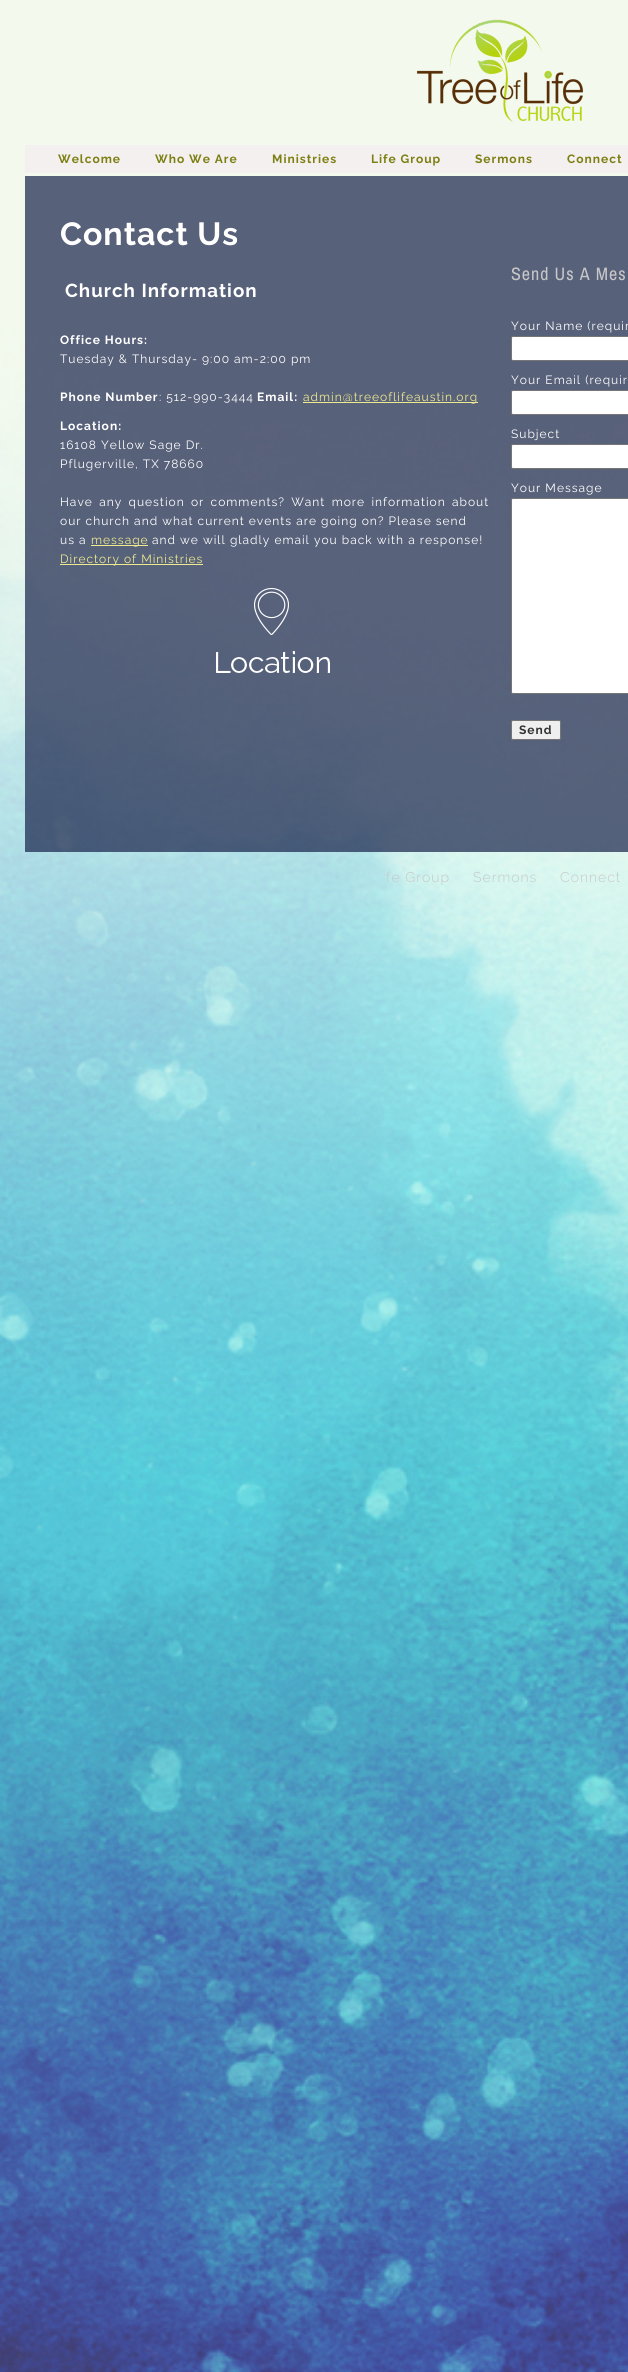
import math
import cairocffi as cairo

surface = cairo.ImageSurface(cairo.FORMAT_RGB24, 628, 2372)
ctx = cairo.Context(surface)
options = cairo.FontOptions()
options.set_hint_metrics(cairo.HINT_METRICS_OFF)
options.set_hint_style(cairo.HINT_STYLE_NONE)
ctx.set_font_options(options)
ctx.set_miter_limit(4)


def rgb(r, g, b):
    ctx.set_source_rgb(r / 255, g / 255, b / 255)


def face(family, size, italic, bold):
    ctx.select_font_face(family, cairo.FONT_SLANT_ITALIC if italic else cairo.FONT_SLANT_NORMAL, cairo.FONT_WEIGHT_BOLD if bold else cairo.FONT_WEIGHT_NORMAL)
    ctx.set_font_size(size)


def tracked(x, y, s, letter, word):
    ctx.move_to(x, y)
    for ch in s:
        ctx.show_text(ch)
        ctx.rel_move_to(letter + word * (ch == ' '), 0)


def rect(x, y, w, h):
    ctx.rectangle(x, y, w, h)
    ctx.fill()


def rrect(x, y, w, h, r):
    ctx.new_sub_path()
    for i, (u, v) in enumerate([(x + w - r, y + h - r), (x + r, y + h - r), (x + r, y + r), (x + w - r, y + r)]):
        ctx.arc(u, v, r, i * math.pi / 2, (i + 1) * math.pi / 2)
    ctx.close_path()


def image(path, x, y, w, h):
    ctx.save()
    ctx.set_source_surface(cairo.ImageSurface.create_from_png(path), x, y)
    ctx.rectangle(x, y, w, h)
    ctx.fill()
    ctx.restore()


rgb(255, 255, 255)
ctx.paint()
image('image0.png', 0, 0, 628, 2372)
image('image1.png', 416, 19, 168, 103)
rgb(245, 240, 240)
rect(25, 145, 603, 28)
face('Raleway', 12, 0, 1)
rgb(124, 128, 18)
tracked(58, 163, 'Welcome', 1, 0)
tracked(155, 163, 'Who We Are', 1, 0)
tracked(272, 163, 'Ministries', 1, 0)
tracked(371, 163, 'Life Group', 1, 0)
tracked(475, 163, 'Sermons', 1, 0)
tracked(567, 163, 'Connect', 1, 0)
ctx.set_source_rgba(0.094, 0.129, 0.29, 0.7)
rect(25, 176, 603, 676)
face('Raleway', 32, 0, 1)
rgb(255, 255, 255)
tracked(60, 245, 'Contact Us', 1, 0)
face('Raleway', 18.75, 0, 1)
tracked(65, 297, 'Church Information', 1, 0)
face('Raleway', 12, 0, 1)
tracked(60, 344, 'Office Hours:', 1, 0)
face('Raleway', 12, 0, 0)
tracked(60, 363, 'Tuesday & Thursday- 9:00 am-2:00 pm', 1, 0)
face('Raleway', 12, 0, 1)
tracked(60, 401, 'Phone Number', 1, 0)
face('Raleway', 12, 0, 0)
tracked(159, 401, ': 512-990-3444', 1, 0)
face('Raleway', 12, 0, 1)
tracked(257, 401, 'Email:', 1, 0)
rgb(239, 233, 143)
rect(303, 402, 175, 1)
face('Raleway', 12, 0, 0)
tracked(303, 401, 'admin@treeoflifeaustin.org', 1, 0)
face('Raleway', 12, 0, 1)
rgb(255, 255, 255)
tracked(60, 430, 'Location:', 1, 0)
face('Raleway', 12, 0, 0)
tracked(60, 449, '16108 Yellow Sage Dr.', 1, 0)
tracked(60, 468, 'Pflugerville, TX 78660', 1, 0)
tracked(60, 506, 'Have any question or comments? Want more information about', 1, 2.25)
tracked(60, 525, 'our church and what current events are going on? Please send', 1, 0)
tracked(60, 544, 'us a', 1, 0)
rgb(239, 233, 143)
rect(91, 545, 57, 1)
tracked(91, 544, 'message', 1, 0)
rgb(255, 255, 255)
tracked(152, 544, 'and we will gladly email you back with a response!', 1, 0)
rgb(239, 233, 143)
rect(60, 564, 143, 1)
tracked(60, 563, 'Directory of Ministries', 1, 0)
image('image2.png', 216, 588, 114, 85)
face('Archivo Narrow', 18, 0, 0)
rgb(200, 199, 199)
tracked(511, 280, 'Send Us A Mes', 1, 0)
face('Raleway', 12, 0, 0)
rgb(255, 255, 255)
tracked(511, 330, 'Your Name (requir', 1, 0)
rrect(511.5, 336.5, 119, 24, 1.5)
ctx.fill_preserve()
rgb(118, 118, 118)
ctx.set_line_width(1)
ctx.stroke()
rgb(255, 255, 255)
tracked(511, 384, 'Your Email (requir', 1, 0)
rrect(511.5, 390.5, 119, 24, 1.5)
ctx.fill_preserve()
rgb(118, 118, 118)
ctx.stroke()
rgb(255, 255, 255)
tracked(511, 438, 'Subject', 1, 0)
rrect(511.5, 444.5, 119, 24, 1.5)
ctx.fill_preserve()
rgb(118, 118, 118)
ctx.stroke()
rgb(255, 255, 255)
tracked(511, 492, 'Your Message', 1, 0)
rrect(511.5, 498.5, 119, 195, 1.5)
ctx.fill_preserve()
rgb(118, 118, 118)
ctx.stroke()
rgb(239, 239, 239)
rrect(511.5, 720.5, 49, 19, 1.5)
ctx.fill_preserve()
rgb(118, 118, 118)
ctx.stroke()
face('Raleway', 12, 0, 1)
rgb(51, 51, 51)
tracked(519, 734, 'Send', 1, 0)
face('Raleway Light', 14, 0, 0)
rgb(200, 199, 199)
tracked(386, 882, 'fe Group', 1, 0)
tracked(473, 882, 'Sermons', 1, 0)
tracked(560, 882, 'Connect', 1, 0)
surface.write_to_png('render.png')
